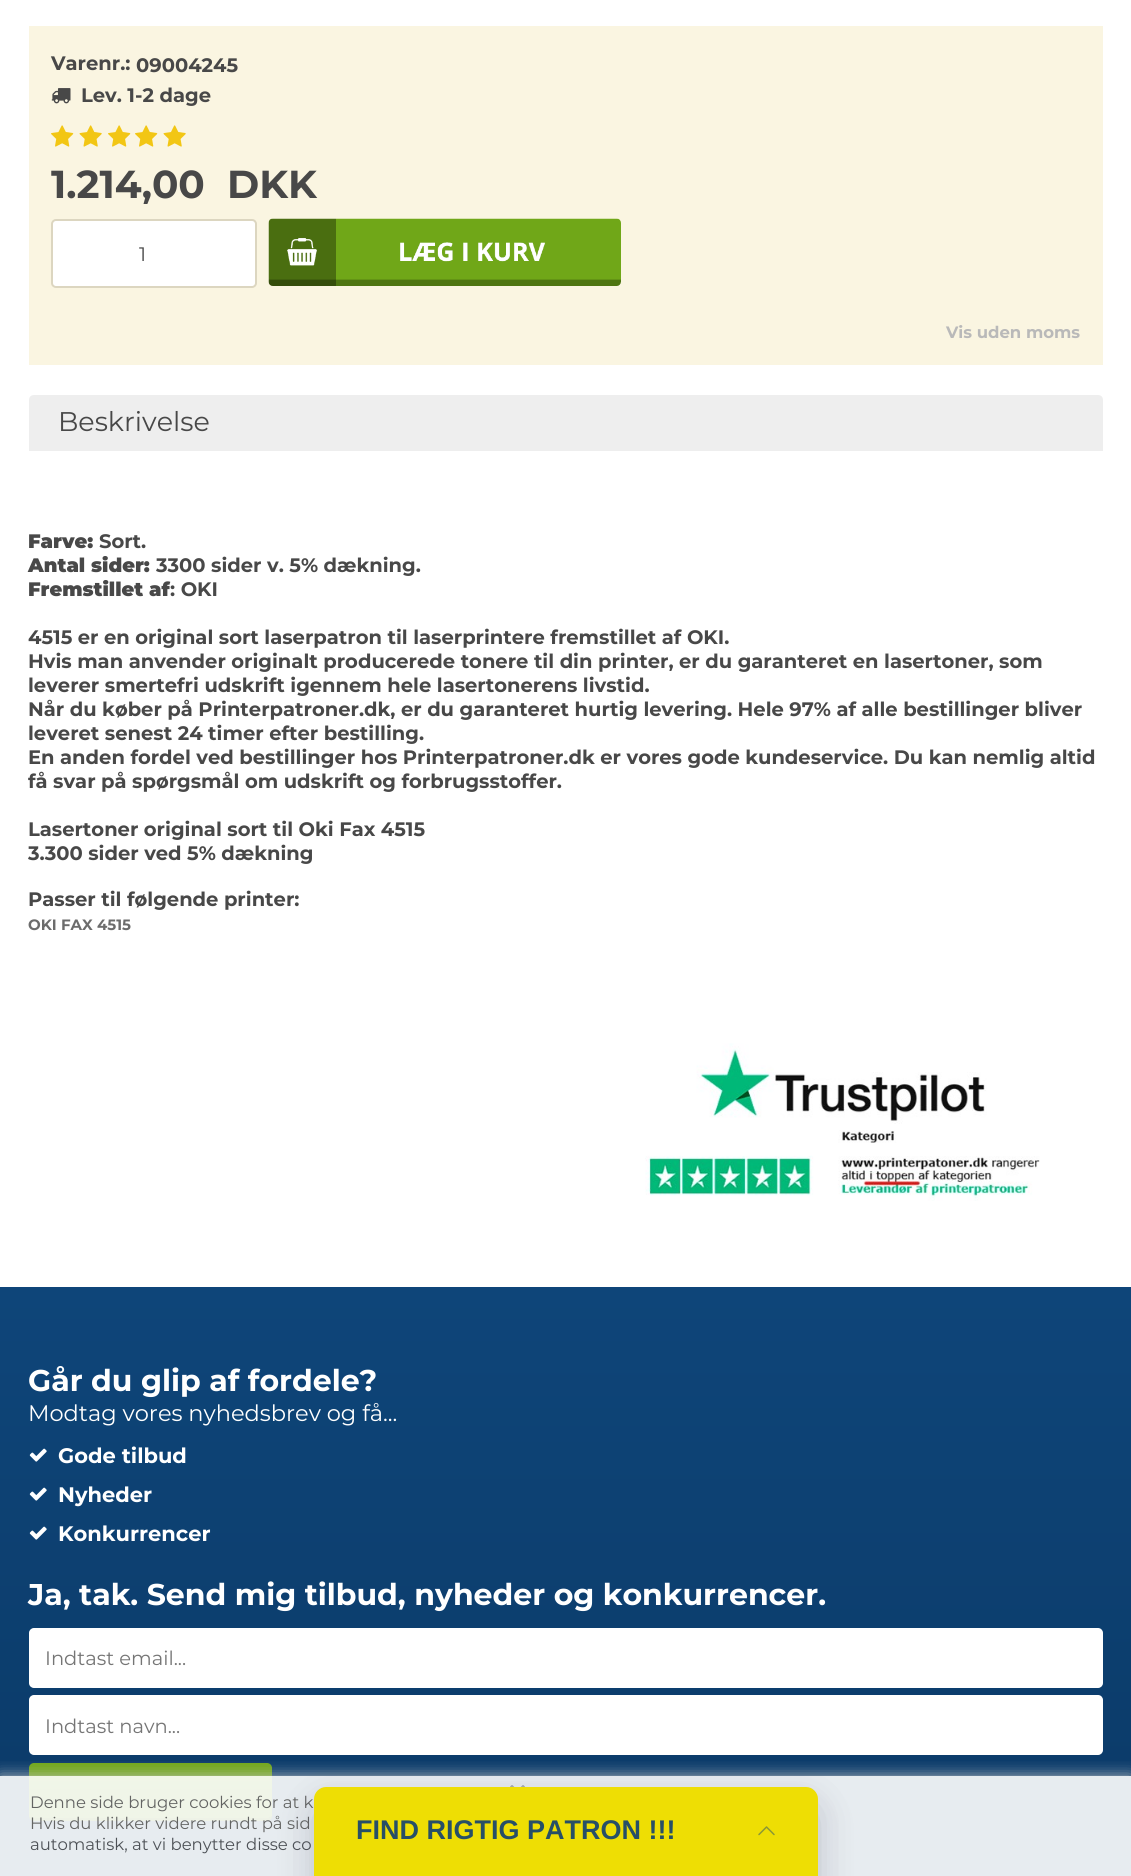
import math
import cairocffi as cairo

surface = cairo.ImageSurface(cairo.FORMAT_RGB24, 1131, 1876)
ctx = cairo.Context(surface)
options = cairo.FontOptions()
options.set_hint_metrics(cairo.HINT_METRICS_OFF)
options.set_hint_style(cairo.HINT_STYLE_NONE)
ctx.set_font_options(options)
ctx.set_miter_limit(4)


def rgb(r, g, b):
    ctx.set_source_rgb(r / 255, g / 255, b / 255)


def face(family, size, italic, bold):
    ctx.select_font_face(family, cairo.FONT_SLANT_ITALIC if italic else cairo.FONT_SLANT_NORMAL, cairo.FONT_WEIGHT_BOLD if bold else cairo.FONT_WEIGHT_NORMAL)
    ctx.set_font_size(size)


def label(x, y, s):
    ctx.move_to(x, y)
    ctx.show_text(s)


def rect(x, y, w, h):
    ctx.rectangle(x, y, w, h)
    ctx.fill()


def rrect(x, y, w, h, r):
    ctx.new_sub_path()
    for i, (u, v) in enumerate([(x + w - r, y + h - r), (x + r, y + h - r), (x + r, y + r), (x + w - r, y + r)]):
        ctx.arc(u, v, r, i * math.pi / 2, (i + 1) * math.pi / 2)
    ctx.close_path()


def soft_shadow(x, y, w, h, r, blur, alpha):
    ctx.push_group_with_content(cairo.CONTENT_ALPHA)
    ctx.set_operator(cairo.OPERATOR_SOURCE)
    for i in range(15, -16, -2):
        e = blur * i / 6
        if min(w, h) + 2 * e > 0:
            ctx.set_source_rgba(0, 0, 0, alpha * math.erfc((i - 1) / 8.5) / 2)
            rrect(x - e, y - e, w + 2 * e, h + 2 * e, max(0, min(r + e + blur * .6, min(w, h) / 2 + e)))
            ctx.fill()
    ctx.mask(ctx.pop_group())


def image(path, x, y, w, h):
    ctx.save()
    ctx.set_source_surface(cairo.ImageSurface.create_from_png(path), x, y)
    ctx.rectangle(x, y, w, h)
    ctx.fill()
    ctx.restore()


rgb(255, 255, 255)
ctx.paint()
rgb(250, 245, 225)
rect(29, 26, 1074, 339)
face('Montserrat', 19.5, 0, 1)
rgb(72, 72, 72)
label(51, 70, 'Varenr.:')
label(136, 72, '09004245')
image('image0.png', 51, 88, 20, 16)
label(81, 102, 'Lev. 1-2 dage')
image('image1.png', 51, 125, 23, 22)
image('image2.png', 79, 125, 23, 22)
image('image1.png', 108, 125, 23, 22)
image('image1.png', 135, 125, 23, 22)
image('image2.png', 163, 125, 23, 22)
face('Montserrat', 39, 0, 1)
label(51, 198, '1.214,00')
label(227, 198, 'DKK')
rgb(255, 255, 255)
rrect(52, 220, 204, 67, 4)
ctx.fill_preserve()
rgb(220, 214, 192)
ctx.stroke()
face('Montserrat', 19.5, 0, 0)
rgb(72, 72, 72)
label(139, 261, '1')
image('image3.png', 268, 218, 353, 68)
face('Montserrat', 16.5, 0, 1)
rgb(185, 185, 185)
label(946, 338, 'Vis uden moms')
rgb(238, 238, 238)
ctx.new_path()
ctx.move_to(34, 395)
ctx.line_to(1098, 395)
ctx.curve_to(1101, 395, 1103, 397, 1103, 400)
ctx.line_to(1103, 450)
ctx.line_to(29, 450)
ctx.line_to(29, 400)
ctx.curve_to(29, 397, 31, 395, 34, 395)
ctx.close_path()
ctx.fill()
rect(29, 450, 1074, 1)
face('Montserrat', 27, 0, 0)
rgb(72, 72, 72)
label(58, 431, 'Beskrivelse')
face('Montserrat Black', 19.5, 0, 0)
label(28, 548, 'Farve:')
face('Montserrat', 19.5, 0, 1)
label(99, 548, 'Sort.')
face('Montserrat Black', 19.5, 0, 0)
label(28, 572, 'Antal sider:')
face('Montserrat', 19.5, 0, 1)
label(156, 572, '3300 sider v. 5% dækning.')
face('Montserrat Black', 19.5, 0, 0)
label(28, 596, 'Fremstillet af')
face('Montserrat', 19.5, 0, 1)
label(170, 596, ': OKI')
label(28, 644, '4515 er en original sort laserpatron til laserprintere fremstillet af OKI.')
label(28, 668, 'Hvis man anvender originalt producerede tonere til din printer, er du garanteret en lasertoner, som')
label(28, 692, 'leverer smertefri udskrift igennem hele lasertonerens livstid.')
label(28, 716, 'Når du køber på Printerpatroner.dk, er du garanteret hurtig levering. Hele 97% af alle bestillinger bliver')
label(28, 740, 'leveret senest 24 timer efter bestilling.')
label(28, 764, 'En anden fordel ved bestillinger hos Printerpatroner.dk er vores gode kundeservice. Du kan nemlig altid')
label(28, 788, 'få svar på spørgsmål om udskrift og forbrugsstoffer.')
label(28, 836, 'Lasertoner original sort til Oki Fax 4515')
label(28, 860, '3.300 sider ved 5% dækning')
label(28, 906, 'Passer til følgende printer:')
face('Montserrat', 15, 0, 1)
rgb(108, 108, 108)
label(28, 930, 'OKI FAX 4515')
image('image4.png', 645, 1043, 395, 158)
gradient = cairo.LinearGradient(566, 1287, 566, 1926)
gradient.add_color_stop_rgba(0, 0.055, 0.271, 0.475, 1)
gradient.add_color_stop_rgba(1, 0.043, 0.224, 0.4, 1)
ctx.set_source(gradient)
rect(0, 1287, 1131, 589)
face('Montserrat', 30, 0, 1)
rgb(255, 255, 255)
label(28, 1391, 'Går du glip af fordele?')
face('Montserrat', 22.5, 0, 0)
label(28, 1421, 'Modtag vores nyhedsbrev og få...')
image('image5.png', 29, 1448, 18, 14)
face('Montserrat', 21, 0, 1)
label(58, 1463, 'Gode tilbud')
image('image6.png', 29, 1487, 18, 14)
label(58, 1502, 'Nyheder')
image('image7.png', 29, 1526, 18, 14)
label(58, 1541, 'Konkurrencer')
face('Montserrat', 30, 0, 1)
label(28, 1605, 'Ja, tak. Send mig tilbud, nyheder og konkurrencer.')
rrect(30, 1629, 1072, 58, 4)
ctx.fill_preserve()
ctx.stroke()
face('Montserrat', 19.5, 0, 0)
rgb(117, 117, 117)
label(45, 1665, 'Indtast email...')
rgb(255, 255, 255)
rrect(30, 1696, 1072, 58, 4)
ctx.fill_preserve()
ctx.stroke()
rgb(117, 117, 117)
label(45, 1733, 'Indtast navn...')
gradient = cairo.LinearGradient(150, 1763, 150, 1821)
gradient.add_color_stop_rgba(0, 0.439, 0.655, 0.094, 1)
gradient.add_color_stop_rgba(1, 0.384, 0.58, 0.071, 1)
ctx.set_source(gradient)
rrect(29, 1763, 243, 58, 5)
ctx.fill()
ctx.set_source_rgba(0, 0, 0, 0.2)
ctx.new_path()
ctx.move_to(29, 1817)
ctx.curve_to(29, 1819, 32, 1821, 34, 1821)
ctx.line_to(267, 1821)
ctx.curve_to(270, 1821, 272, 1819, 272, 1816)
ctx.line_to(268, 1818)
ctx.line_to(33, 1818)
ctx.close_path()
ctx.fill()
ctx.save()
ctx.rectangle(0, 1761, 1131, 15)
ctx.clip()
rgb(204, 204, 204)
soft_shadow(0, 1776, 1131, 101, 0, 7.5, 0.9)
ctx.restore()
ctx.set_source_rgba(1, 1, 1, 0.9)
rect(0, 1776, 1131, 100)
image('image8.png', 510, 1785, 15, 2)
face('Montserrat', 16.5, 0, 0)
rgb(99, 100, 99)
label(30, 1808, 'Denne side bruger cookies for at k')
label(30, 1829, 'Hvis du klikker videre rundt på sid')
rgb(77, 81, 86)
label(30, 1850, 'automatisk, at vi benytter disse co')
rgb(54, 61, 77)
soft_shadow(321, 1811, 489, 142, 5, 24, 0.15)
soft_shadow(314, 1802, 504, 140, 12, 18, 0.15)
rgb(238, 222, 4)
ctx.new_path()
ctx.move_to(326, 1787)
ctx.line_to(806, 1787)
ctx.curve_to(812.5, 1787, 818, 1792.5, 818, 1799)
ctx.line_to(818, 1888)
ctx.line_to(314, 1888)
ctx.line_to(314, 1799)
ctx.curve_to(314, 1792.5, 319.5, 1787, 326, 1787)
ctx.close_path()
ctx.fill()
face('Liberation Sans', 27, 0, 1)
rgb(39, 79, 103)
label(356, 1839, 'FIND RIGTIG PATRON !!!')
ctx.new_path()
ctx.move_to(774, 1834.5)
ctx.line_to(766.5, 1827)
ctx.line_to(759, 1834.5)
rgb(139, 151, 54)
ctx.set_line_width(1.5)
ctx.set_line_cap(cairo.LINE_CAP_ROUND)
ctx.set_line_join(cairo.LINE_JOIN_ROUND)
ctx.stroke()
surface.write_to_png('render.png')
